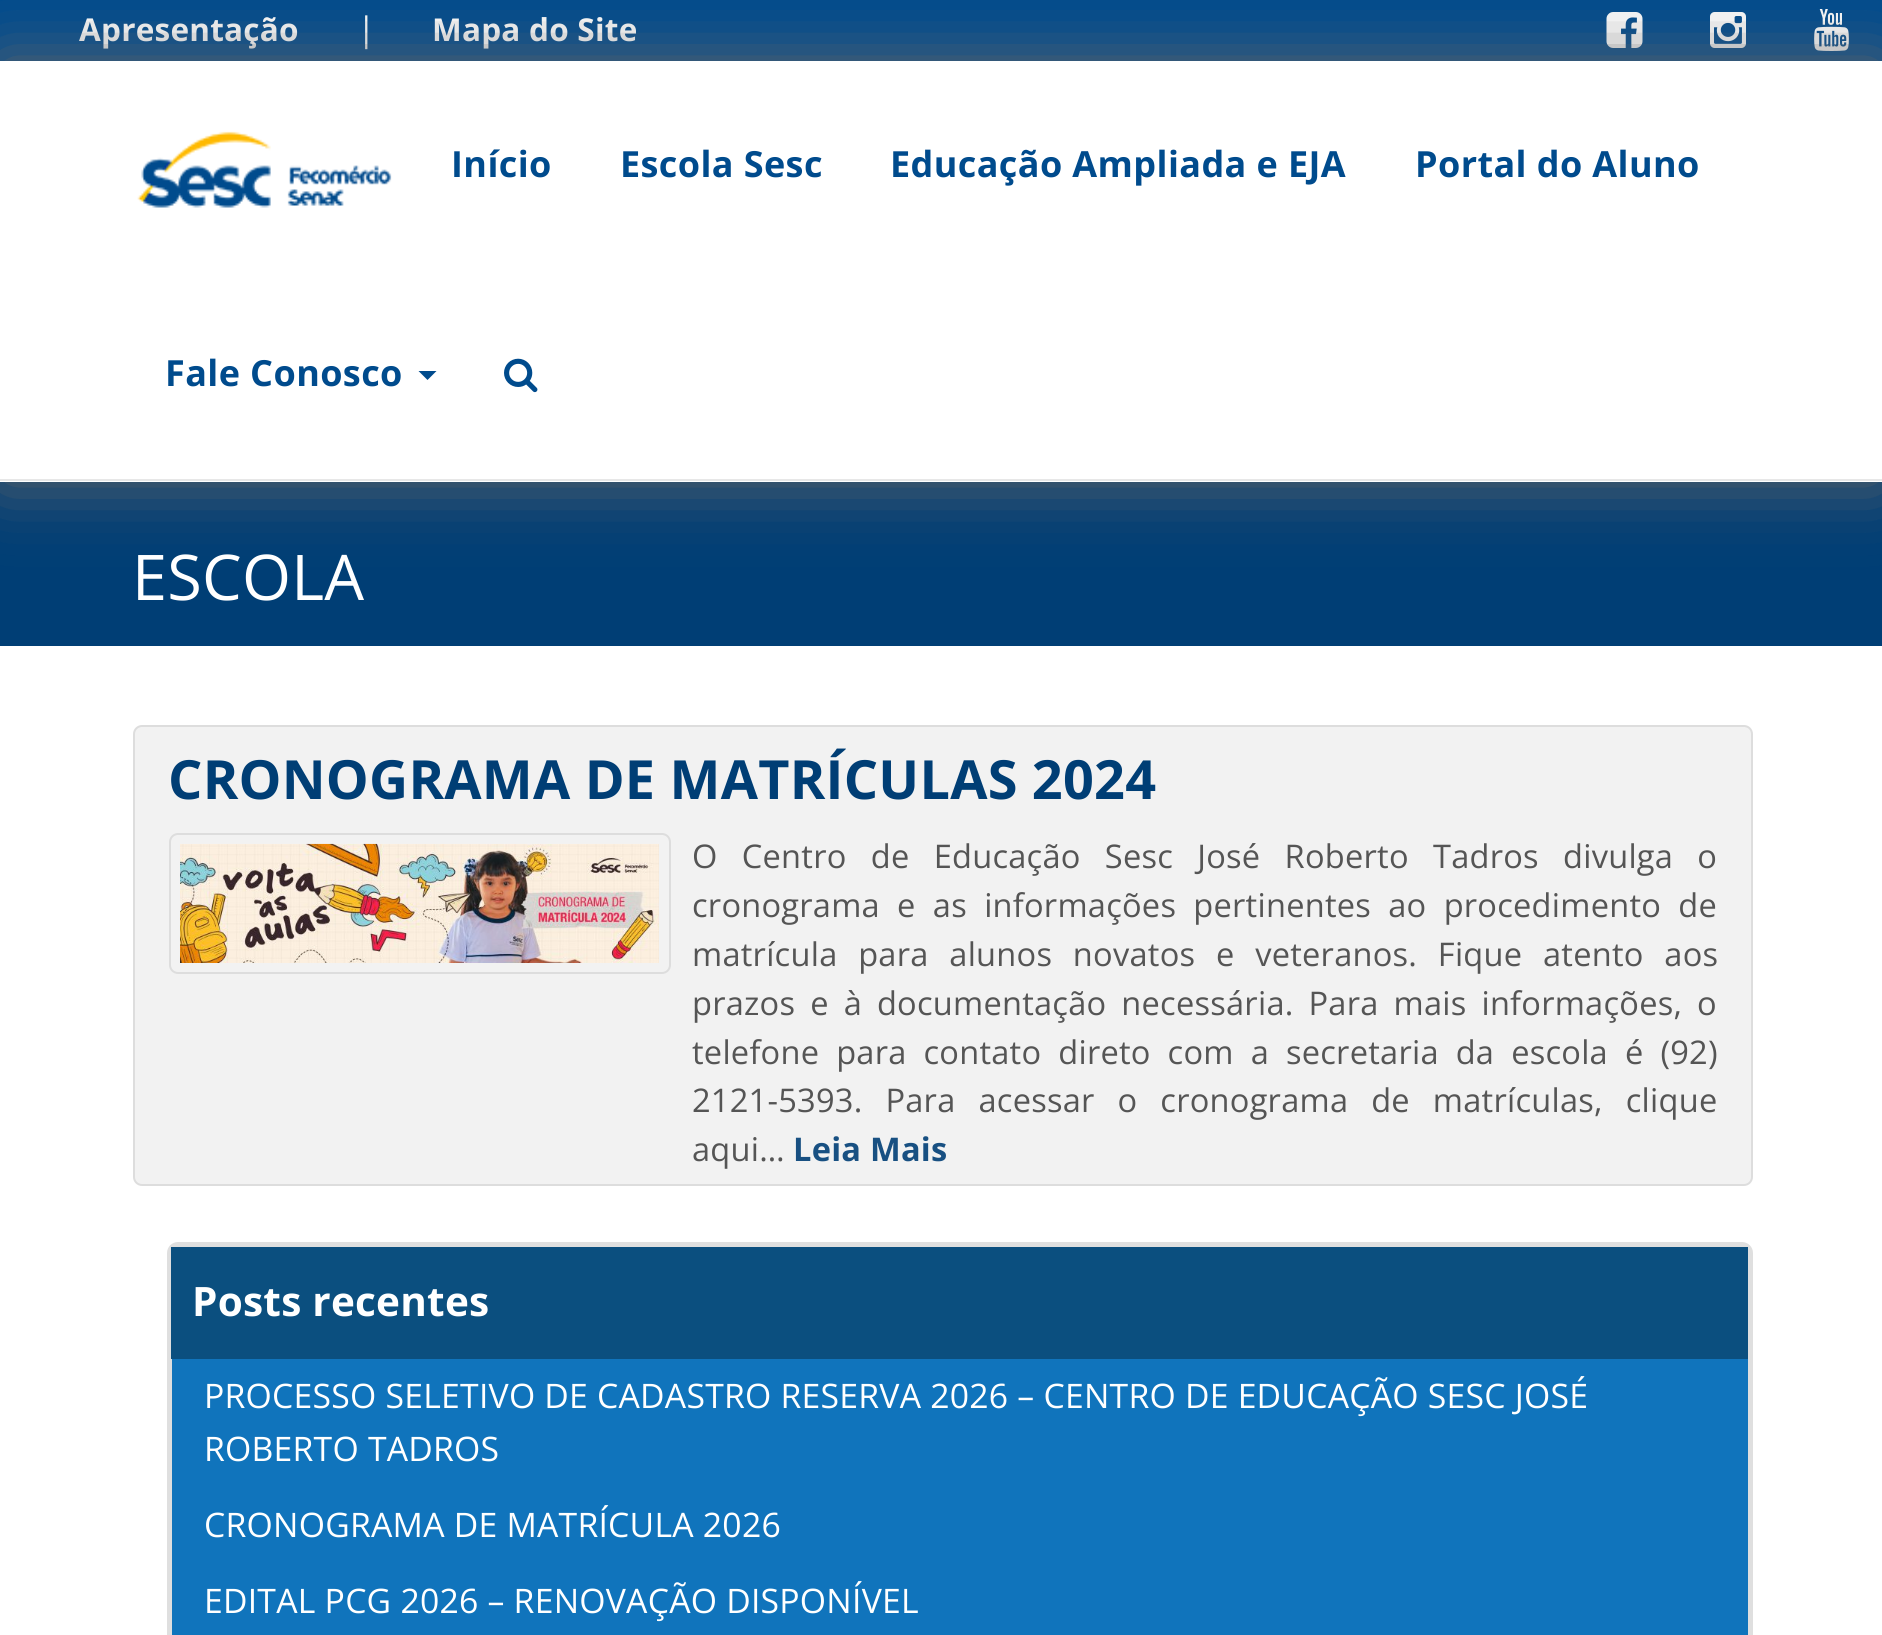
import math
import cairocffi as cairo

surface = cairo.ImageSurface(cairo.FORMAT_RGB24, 1882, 1635)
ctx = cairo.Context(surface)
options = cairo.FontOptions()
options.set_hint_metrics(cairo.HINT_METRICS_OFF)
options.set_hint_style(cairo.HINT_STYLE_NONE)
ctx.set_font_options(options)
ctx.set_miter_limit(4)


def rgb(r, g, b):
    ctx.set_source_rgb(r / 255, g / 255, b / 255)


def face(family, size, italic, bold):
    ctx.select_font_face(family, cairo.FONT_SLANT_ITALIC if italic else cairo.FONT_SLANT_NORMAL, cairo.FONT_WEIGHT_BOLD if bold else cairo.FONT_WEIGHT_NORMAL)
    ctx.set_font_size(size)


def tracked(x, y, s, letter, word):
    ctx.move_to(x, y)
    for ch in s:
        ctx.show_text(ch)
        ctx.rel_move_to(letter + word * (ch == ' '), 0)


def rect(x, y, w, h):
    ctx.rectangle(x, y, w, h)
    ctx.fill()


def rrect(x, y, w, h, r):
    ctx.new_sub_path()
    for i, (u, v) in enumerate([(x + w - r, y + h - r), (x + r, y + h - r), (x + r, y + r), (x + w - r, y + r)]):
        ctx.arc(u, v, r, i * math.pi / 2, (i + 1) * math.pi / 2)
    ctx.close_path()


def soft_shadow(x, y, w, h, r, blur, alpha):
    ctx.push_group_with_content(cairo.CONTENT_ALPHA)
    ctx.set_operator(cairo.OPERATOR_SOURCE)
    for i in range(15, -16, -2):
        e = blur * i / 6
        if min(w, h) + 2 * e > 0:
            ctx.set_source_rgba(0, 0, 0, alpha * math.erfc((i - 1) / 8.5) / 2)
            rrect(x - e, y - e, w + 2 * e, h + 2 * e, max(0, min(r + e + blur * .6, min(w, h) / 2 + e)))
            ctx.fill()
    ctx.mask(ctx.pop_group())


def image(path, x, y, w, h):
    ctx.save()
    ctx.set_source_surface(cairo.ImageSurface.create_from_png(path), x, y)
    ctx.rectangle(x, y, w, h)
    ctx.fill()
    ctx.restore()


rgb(255, 255, 255)
ctx.paint()
rgb(0, 75, 141)
rect(0, 0, 1882, 61)
face('Open Sans', 31.5, 0, 1)
rgb(255, 255, 255)
tracked(79, 41, 'Apresentação', 0.23, 0)
face('Open Sans', 33.75, 0, 0)
tracked(357, 41, '|', 0.23, 0)
face('Open Sans', 31.5, 0, 1)
tracked(432, 41, 'Mapa do Site', 0.23, 0)
image('image0.png', 1606, 12, 37, 36)
image('image1.png', 1710, 12, 36, 36)
image('image2.png', 1814, 9, 35, 42)
rgb(0, 62, 117)
rect(0, 482, 1882, 164)
ctx.save()
ctx.set_fill_rule(cairo.FILL_RULE_EVEN_ODD)
ctx.new_path()
ctx.move_to(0, 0)
ctx.line_to(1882, 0)
ctx.line_to(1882, 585)
ctx.line_to(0, 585)
ctx.close_path()
ctx.move_to(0, 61)
ctx.line_to(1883, 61)
ctx.line_to(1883, 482)
ctx.line_to(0, 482)
ctx.close_path()
ctx.clip()
rgb(102, 102, 102)
soft_shadow(0, 61, 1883, 421, 0, 34, 1)
ctx.restore()
rgb(231, 231, 231)
rect(0, 479, 1882, 2)
image('image3.png', 137, 131, 255, 77)
face('Open Sans', 36, 0, 1)
rgb(0, 75, 141)
tracked(451, 177, 'Início', 0.4, 0)
tracked(620, 177, 'Escola Sesc', 0.4, 0)
tracked(890, 177, 'Educação Ampliada e EJA', 0.4, 0)
tracked(1415, 177, 'Portal do Aluno', 0.4, 0)
tracked(165, 386, 'Fale Conosco', 0.4, 0)
ctx.new_path()
ctx.move_to(418.5, 371)
ctx.line_to(436.5, 371)
ctx.line_to(427.5, 380)
ctx.close_path()
ctx.fill()
image('image4.png', 504, 358, 34, 35)
face('Open Sans', 63, 0, 0)
rgb(255, 255, 255)
tracked(132, 600, 'ESCOLA', 0.23, 0)
rgb(242, 242, 242)
rrect(134, 726, 1618, 459, 8)
ctx.fill_preserve()
rgb(221, 221, 221)
ctx.stroke()
face('Open Sans', 54, 0, 1)
rgb(0, 62, 117)
tracked(168, 799, 'CRONOGRAMA DE MATRÍCULAS 2024', 0.23, 0)
rrect(170, 834, 500, 139, 8)
rgb(221, 221, 221)
ctx.stroke()
image('image5.png', 180, 843, 479, 120)
face('Open Sans', 32.6, 0, 0)
rgb(85, 85, 85)
tracked(692, 868, 'O Centro de Educação Sesc José Roberto Tadros divulga o', 0.23, 15.5)
tracked(692, 917, 'cronograma e as informações pertinentes ao procedimento de', 0.23, 8.5)
tracked(692, 966, 'matrícula para alunos novatos e veteranos. Fique atento aos', 0.23, 12)
tracked(692, 1015, 'prazos e à documentação necessária. Para mais informações, o', 0.23, 6.25)
tracked(692, 1064, 'telefone para contato direto com a secretaria da escola é (92)', 0.23, 8.25)
tracked(692, 1112, '2121-5393. Para acessar o cronograma de matrículas, clique', 0.23, 14.25)
tracked(692, 1161, 'aqui…', 0.23, 0)
face('Open Sans', 32.6, 0, 1)
rgb(24, 80, 130)
tracked(793, 1161, 'Leia Mais', 0.23, 0)
rgb(16, 116, 188)
rrect(169.5, 1244.5, 1581, 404, 8.5)
ctx.fill_preserve()
rgb(223, 223, 223)
ctx.set_line_width(5)
ctx.stroke()
rgb(11, 79, 127)
rect(171, 1247, 1577, 112)
face('Open Sans', 40.5, 0, 1)
rgb(255, 255, 255)
tracked(192, 1316, 'Posts recentes', 0.23, 0)
face('Open Sans', 33.75, 0, 0)
tracked(204, 1408, 'PROCESSO SELETIVO DE CADASTRO RESERVA 2026 – CENTRO DE EDUCAÇÃO SESC JOSÉ', 0.23, 0)
tracked(204, 1461, 'ROBERTO TADROS', 0.23, 0)
tracked(204, 1537, 'CRONOGRAMA DE MATRÍCULA 2026', 0.23, 0)
tracked(204, 1613, 'EDITAL PCG 2026 – RENOVAÇÃO DISPONÍVEL', 0.23, 0)
surface.write_to_png('render.png')
